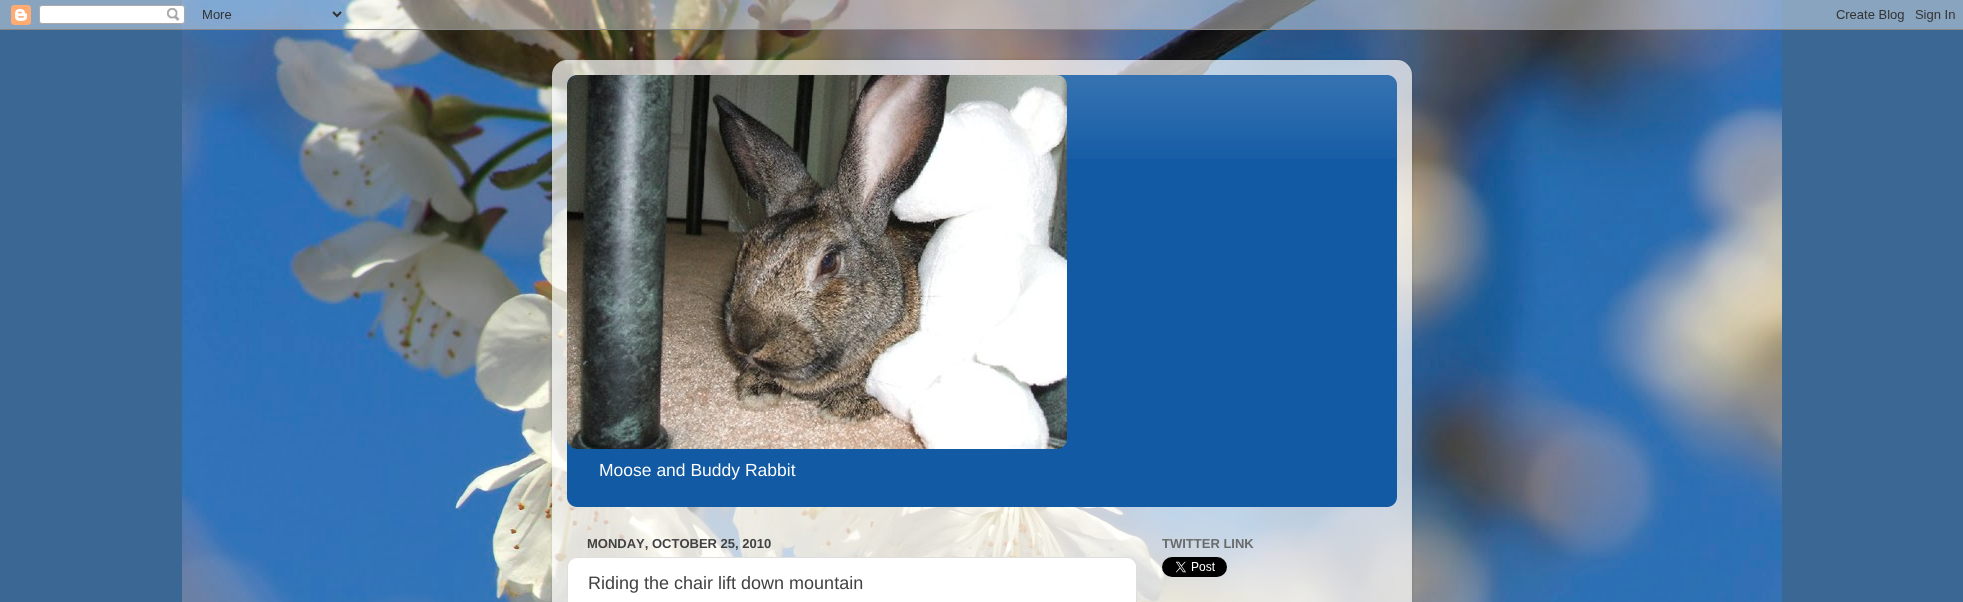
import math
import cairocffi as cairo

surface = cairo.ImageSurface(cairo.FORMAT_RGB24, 1963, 602)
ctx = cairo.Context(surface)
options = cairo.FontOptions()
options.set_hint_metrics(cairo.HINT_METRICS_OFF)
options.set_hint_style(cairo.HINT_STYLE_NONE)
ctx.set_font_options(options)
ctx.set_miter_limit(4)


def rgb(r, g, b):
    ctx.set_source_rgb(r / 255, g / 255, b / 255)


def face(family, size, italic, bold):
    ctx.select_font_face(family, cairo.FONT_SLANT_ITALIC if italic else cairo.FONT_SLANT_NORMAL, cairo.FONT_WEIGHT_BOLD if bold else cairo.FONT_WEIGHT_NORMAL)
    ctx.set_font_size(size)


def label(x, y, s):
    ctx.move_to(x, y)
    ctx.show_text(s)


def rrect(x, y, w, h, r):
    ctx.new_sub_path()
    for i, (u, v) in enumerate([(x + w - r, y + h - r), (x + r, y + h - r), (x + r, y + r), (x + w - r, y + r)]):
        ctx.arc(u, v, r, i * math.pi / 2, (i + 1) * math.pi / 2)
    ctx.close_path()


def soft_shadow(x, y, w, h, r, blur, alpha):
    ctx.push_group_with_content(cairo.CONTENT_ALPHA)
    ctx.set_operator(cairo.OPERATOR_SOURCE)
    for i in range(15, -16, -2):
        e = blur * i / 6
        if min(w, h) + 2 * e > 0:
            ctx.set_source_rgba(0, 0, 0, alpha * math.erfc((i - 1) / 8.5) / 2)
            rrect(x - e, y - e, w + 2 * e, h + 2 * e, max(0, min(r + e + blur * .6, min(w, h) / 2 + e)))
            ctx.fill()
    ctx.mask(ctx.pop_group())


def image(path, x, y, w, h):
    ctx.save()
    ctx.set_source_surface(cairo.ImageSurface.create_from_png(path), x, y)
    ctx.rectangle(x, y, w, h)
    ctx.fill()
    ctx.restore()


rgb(59, 103, 148)
ctx.paint()
image('image0.png', 182, 0, 1600, 602)
image('image1.png', 0, 0, 1963, 30)
ctx.save()
ctx.set_fill_rule(cairo.FILL_RULE_EVEN_ODD)
ctx.new_path()
ctx.move_to(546, 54)
ctx.line_to(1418, 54)
ctx.line_to(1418, 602)
ctx.line_to(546, 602)
ctx.close_path()
ctx.move_to(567, 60)
ctx.line_to(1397, 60)
ctx.curve_to(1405.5, 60, 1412, 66.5, 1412, 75)
ctx.line_to(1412, 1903)
ctx.curve_to(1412, 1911.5, 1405.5, 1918, 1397, 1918)
ctx.line_to(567, 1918)
ctx.curve_to(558.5, 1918, 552, 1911.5, 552, 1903)
ctx.line_to(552, 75)
ctx.curve_to(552, 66.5, 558.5, 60, 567, 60)
ctx.close_path()
ctx.clip()
rgb(0, 0, 0)
soft_shadow(552, 60, 860, 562, 15, 1.5, 0.15)
ctx.restore()
image('image2.png', 552, 60, 860, 542)
rgb(18, 90, 164)
rrect(567, 75, 830, 432, 10)
ctx.fill()
image('image3.png', 567, 75, 830, 84)
image('image4.png', 567, 75, 500, 374)
face('Liberation Sans', 17.5, 0, 0)
rgb(255, 255, 255)
label(599, 476, 'Moose and Buddy Rabbit')
face('Liberation Sans', 13, 0, 1)
rgb(65, 65, 65)
label(587, 548, 'MONDAY, OCTOBER 25, 2010')
rgb(255, 255, 255)
rrect(567.5, 557.5, 569, 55, 9.5)
ctx.fill_preserve()
rgb(222, 222, 222)
ctx.set_line_width(1)
ctx.stroke()
face('Liberation Sans', 18, 0, 0)
rgb(65, 65, 65)
label(588, 589, 'Riding the chair lift down mountain')
face('Liberation Sans', 13, 0, 1)
rgb(106, 106, 106)
label(1162, 548, 'TWITTER LINK')
image('image5.png', 1162, 557, 65, 20)
surface.write_to_png('render.png')
